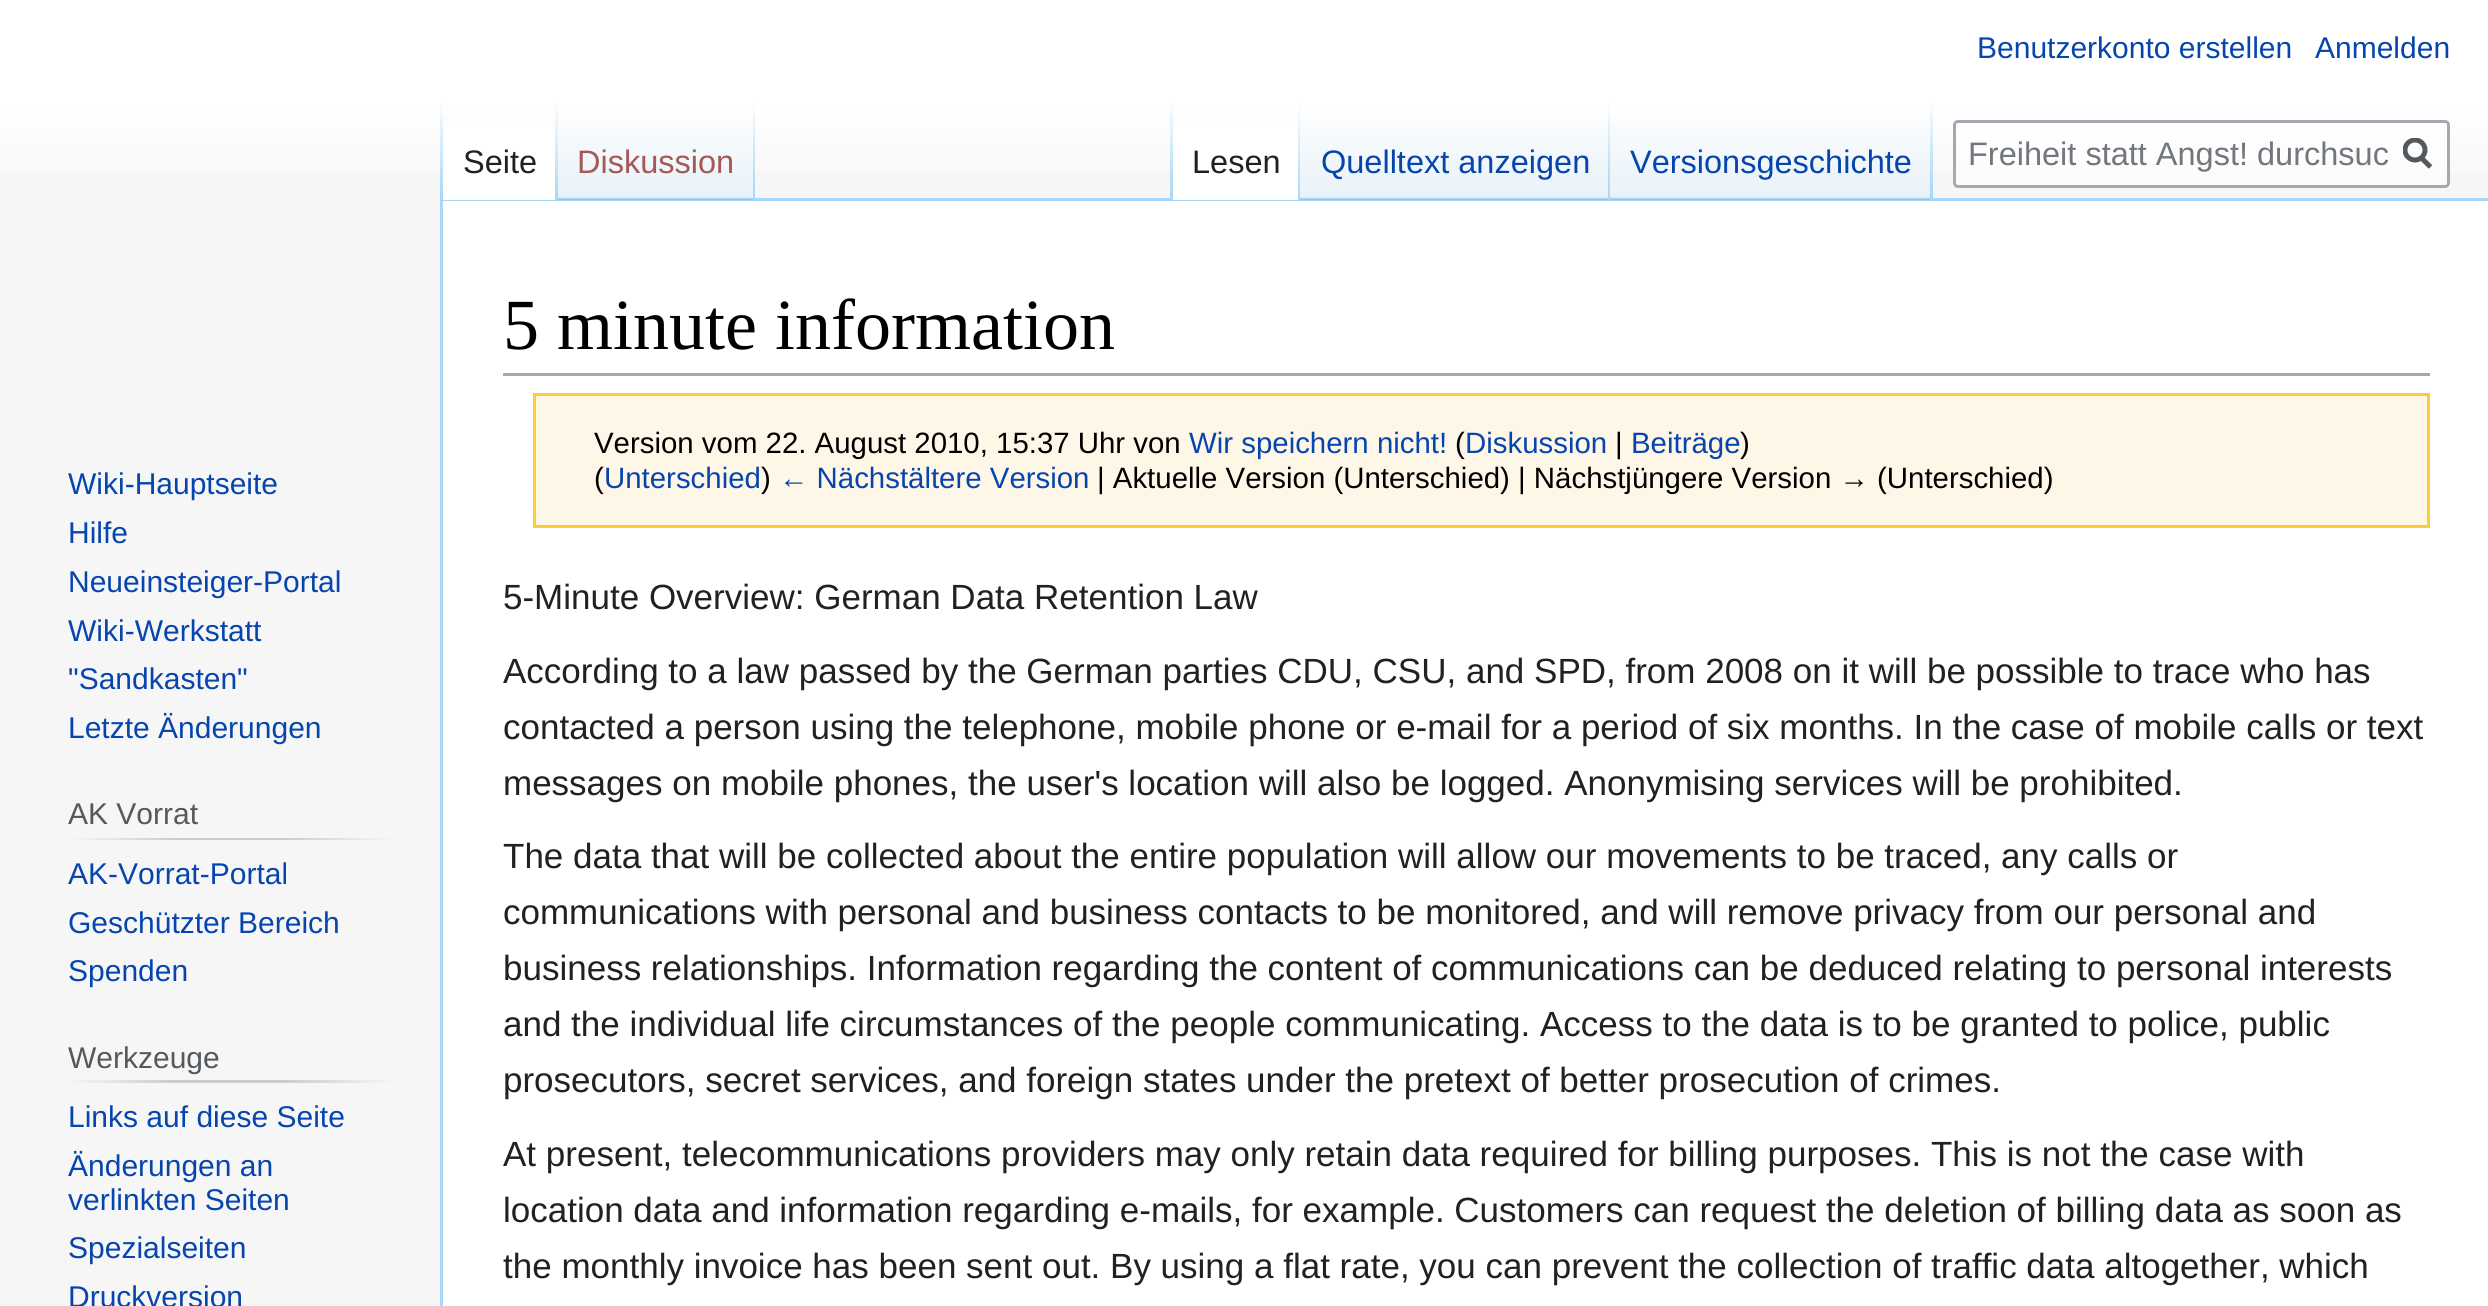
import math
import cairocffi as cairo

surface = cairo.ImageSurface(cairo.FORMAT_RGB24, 2488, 1306)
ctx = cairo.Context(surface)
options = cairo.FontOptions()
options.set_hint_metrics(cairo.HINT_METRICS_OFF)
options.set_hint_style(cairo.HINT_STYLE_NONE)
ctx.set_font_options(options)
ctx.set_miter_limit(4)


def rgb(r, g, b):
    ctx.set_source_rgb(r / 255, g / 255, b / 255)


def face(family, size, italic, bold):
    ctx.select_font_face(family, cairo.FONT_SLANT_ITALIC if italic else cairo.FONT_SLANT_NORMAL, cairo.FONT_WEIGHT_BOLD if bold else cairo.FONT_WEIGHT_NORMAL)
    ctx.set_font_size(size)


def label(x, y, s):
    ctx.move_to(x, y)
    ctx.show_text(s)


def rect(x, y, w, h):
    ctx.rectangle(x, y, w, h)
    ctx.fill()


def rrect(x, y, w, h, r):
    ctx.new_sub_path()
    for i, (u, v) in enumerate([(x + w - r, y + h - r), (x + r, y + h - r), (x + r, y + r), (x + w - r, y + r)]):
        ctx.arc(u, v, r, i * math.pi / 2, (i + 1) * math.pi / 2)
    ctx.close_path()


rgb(246, 246, 246)
ctx.paint()
gradient = cairo.LinearGradient(1245, 0, 1245, 200)
gradient.add_color_stop_rgba(0.5, 1, 1, 1, 1)
gradient.add_color_stop_rgba(1, 0.965, 0.965, 0.965, 1)
ctx.set_source(gradient)
rect(0, 0, 2488, 172)
face('Liberation Sans', 30, 0, 0)
rgb(6, 69, 173)
label(1977, 58, 'Benutzerkonto erstellen')
label(2315, 58, 'Anmelden')
rgb(167, 215, 249)
rect(440, 198, 2048, 3)
rect(440, 198, 3, 1108)
gradient = cairo.LinearGradient(441, 100, 441, 200)
gradient.add_color_stop_rgba(0, 0.655, 0.843, 0.976, 0)
gradient.add_color_stop_rgba(1, 0.655, 0.843, 0.976, 1)
ctx.set_source(gradient)
rect(440, 100, 3, 100)
rgb(255, 255, 255)
rect(443, 128, 112, 72)
gradient = cairo.LinearGradient(556, 100, 556, 200)
gradient.add_color_stop_rgba(0, 1, 1, 1, 1)
gradient.add_color_stop_rgba(1, 0.655, 0.843, 0.976, 1)
ctx.set_source(gradient)
rect(555, 100, 3, 100)
face('Liberation Sans', 32.5, 0, 0)
rgb(32, 33, 34)
label(463, 173, 'Seite')
gradient = cairo.LinearGradient(656, 200, 656, 100)
gradient.add_color_stop_rgba(0, 0.467, 0.757, 0.965, 1)
gradient.add_color_stop_rgba(0.03, 0.91, 0.949, 0.973, 1)
gradient.add_color_stop_rgba(1, 1, 1, 1, 1)
ctx.set_source(gradient)
rect(558, 115, 197, 85)
gradient = cairo.LinearGradient(754, 100, 754, 200)
gradient.add_color_stop_rgba(0, 0.655, 0.843, 0.976, 0)
gradient.add_color_stop_rgba(1, 0.655, 0.843, 0.976, 1)
ctx.set_source(gradient)
rect(753, 100, 2, 100)
rgb(165, 88, 88)
label(577, 173, 'Diskussion')
gradient = cairo.LinearGradient(1171, 100, 1171, 200)
gradient.add_color_stop_rgba(0, 0.655, 0.843, 0.976, 0)
gradient.add_color_stop_rgba(1, 0.655, 0.843, 0.976, 1)
ctx.set_source(gradient)
rect(1170, 100, 3, 100)
rgb(255, 255, 255)
rect(1173, 128, 125, 72)
gradient = cairo.LinearGradient(1299, 100, 1299, 200)
gradient.add_color_stop_rgba(0, 1, 1, 1, 1)
gradient.add_color_stop_rgba(1, 0.655, 0.843, 0.976, 1)
ctx.set_source(gradient)
rect(1298, 100, 2, 100)
rgb(32, 33, 34)
label(1192, 173, 'Lesen')
gradient = cairo.LinearGradient(1455, 200, 1455, 100)
gradient.add_color_stop_rgba(0, 0.467, 0.757, 0.965, 1)
gradient.add_color_stop_rgba(0.03, 0.91, 0.949, 0.973, 1)
gradient.add_color_stop_rgba(1, 1, 1, 1, 1)
ctx.set_source(gradient)
rect(1300, 115, 310, 85)
gradient = cairo.LinearGradient(1609, 100, 1609, 200)
gradient.add_color_stop_rgba(0, 0.655, 0.843, 0.976, 0)
gradient.add_color_stop_rgba(1, 0.655, 0.843, 0.976, 1)
ctx.set_source(gradient)
rect(1608, 100, 2, 100)
rgb(6, 69, 173)
label(1321, 173, 'Quelltext anzeigen')
gradient = cairo.LinearGradient(1771, 200, 1771, 100)
gradient.add_color_stop_rgba(0, 0.467, 0.757, 0.965, 1)
gradient.add_color_stop_rgba(0.03, 0.91, 0.949, 0.973, 1)
gradient.add_color_stop_rgba(1, 1, 1, 1, 1)
ctx.set_source(gradient)
rect(1610, 115, 323, 85)
gradient = cairo.LinearGradient(1931, 100, 1931, 200)
gradient.add_color_stop_rgba(0, 0.655, 0.843, 0.976, 0)
gradient.add_color_stop_rgba(1, 0.655, 0.843, 0.976, 1)
ctx.set_source(gradient)
rect(1930, 100, 3, 100)
rgb(6, 69, 173)
label(1630, 173, 'Versionsgeschichte')
ctx.set_source_rgba(1, 1, 1, 0.5)
rrect(1954.5, 121.5, 494, 65, 3.5)
ctx.fill_preserve()
rgb(162, 169, 177)
ctx.set_line_width(3)
ctx.stroke()
rgb(114, 119, 125)
label(1968, 165, 'Freiheit statt Angst! durchsuc')
ctx.new_path()
ctx.move_to(2430.5, 167)
ctx.line_to(2420.5, 157)
rgb(84, 89, 93)
ctx.set_line_width(5)
ctx.stroke()
ctx.save()
ctx.rectangle(2403, 138, 30, 32)
ctx.clip()
ctx.arc(2415, 150, 10, 0, 2 * math.pi)
ctx.stroke()
ctx.restore()
face('Liberation Sans', 30, 0, 0)
rgb(6, 69, 173)
label(68, 494, 'Wiki-Hauptseite')
label(68, 543, 'Hilfe')
label(68, 592, 'Neueinsteiger-Portal')
label(68, 641, 'Wiki-Werkstatt')
label(68, 689, '"Sandkasten"')
label(68, 738, 'Letzte Änderungen')
gradient = cairo.LinearGradient(68, 839, 395, 839)
gradient.add_color_stop_rgba(0, 0.965, 0.965, 0.965, 1)
gradient.add_color_stop_rgba(0.33, 0.784, 0.8, 0.82, 1)
gradient.add_color_stop_rgba(0.66, 0.784, 0.8, 0.82, 1)
gradient.add_color_stop_rgba(1, 0.965, 0.965, 0.965, 1)
ctx.set_source(gradient)
rect(68, 838, 327, 2)
rgb(84, 89, 93)
label(68, 824, 'AK Vorrat')
rgb(6, 69, 173)
label(68, 884, 'AK-Vorrat-Portal')
label(68, 933, 'Geschützter Bereich')
label(68, 981, 'Spenden')
gradient = cairo.LinearGradient(68, 1081, 395, 1081)
gradient.add_color_stop_rgba(0, 0.965, 0.965, 0.965, 1)
gradient.add_color_stop_rgba(0.33, 0.784, 0.8, 0.82, 1)
gradient.add_color_stop_rgba(0.66, 0.784, 0.8, 0.82, 1)
gradient.add_color_stop_rgba(1, 0.965, 0.965, 0.965, 1)
ctx.set_source(gradient)
rect(68, 1080, 327, 3)
rgb(84, 89, 93)
label(68, 1068, 'Werkzeuge')
rgb(6, 69, 173)
label(68, 1127, 'Links auf diese Seite')
label(68, 1176, 'Änderungen an')
label(68, 1210, 'verlinkten Seiten')
label(68, 1258, 'Spezialseiten')
label(68, 1307, 'Druckversion')
rgb(255, 255, 255)
rect(443, 201, 2045, 1105)
rgb(162, 169, 177)
rect(503, 373, 1927, 3)
face('Liberation Serif', 72, 0, 0)
rgb(0, 0, 0)
label(503, 349, '5 minute information')
rgb(254, 246, 231)
ctx.rectangle(534.5, 394.5, 1894, 132)
ctx.fill_preserve()
rgb(255, 204, 51)
ctx.set_line_width(3)
ctx.stroke()
face('Liberation Sans', 29.4, 0, 0)
rgb(0, 0, 0)
label(594, 453, 'Version vom 22. August 2010, 15:37 Uhr von')
rgb(6, 69, 173)
label(1189, 453, 'Wir speichern nicht!')
rgb(0, 0, 0)
label(1455, 453, '(')
rgb(6, 69, 173)
label(1465, 453, 'Diskussion')
rgb(0, 0, 0)
label(1615, 453, '|')
rgb(6, 69, 173)
label(1631, 453, 'Beiträge')
rgb(0, 0, 0)
label(1740, 453, ')')
label(594, 488, '(')
rgb(6, 69, 173)
label(604, 488, 'Unterschied')
rgb(0, 0, 0)
label(761, 488, ')')
rgb(6, 69, 173)
label(779, 488, '← Nächstältere Version')
rgb(0, 0, 0)
label(1097, 488, '| Aktuelle Version (Unterschied) | Nächstjüngere Version → (Unterschied)')
face('Liberation Sans', 35, 0, 0)
rgb(32, 33, 34)
label(503, 609, '5-Minute Overview: German Data Retention Law')
label(503, 683, 'According to a law passed by the German parties CDU, CSU, and SPD, from 2008 on it will be possible to trace who has')
label(503, 739, 'contacted a person using the telephone, mobile phone or e-mail for a period of six months. In the case of mobile calls or text')
label(503, 795, 'messages on mobile phones, the user\'s location will also be logged. Anonymising services will be prohibited.')
label(503, 868, 'The data that will be collected about the entire population will allow our movements to be traced, any calls or')
label(503, 924, 'communications with personal and business contacts to be monitored, and will remove privacy from our personal and')
label(503, 980, 'business relationships. Information regarding the content of communications can be deduced relating to personal interests')
label(503, 1036, 'and the individual life circumstances of the people communicating. Access to the data is to be granted to police, public')
label(503, 1092, 'prosecutors, secret services, and foreign states under the pretext of better prosecution of crimes.')
label(503, 1166, 'At present, telecommunications providers may only retain data required for billing purposes. This is not the case with')
label(503, 1222, 'location data and information regarding e-mails, for example. Customers can request the deletion of billing data as soon as')
label(503, 1278, 'the monthly invoice has been sent out. By using a flat rate, you can prevent the collection of traffic data altogether, which')
surface.write_to_png('render.png')
